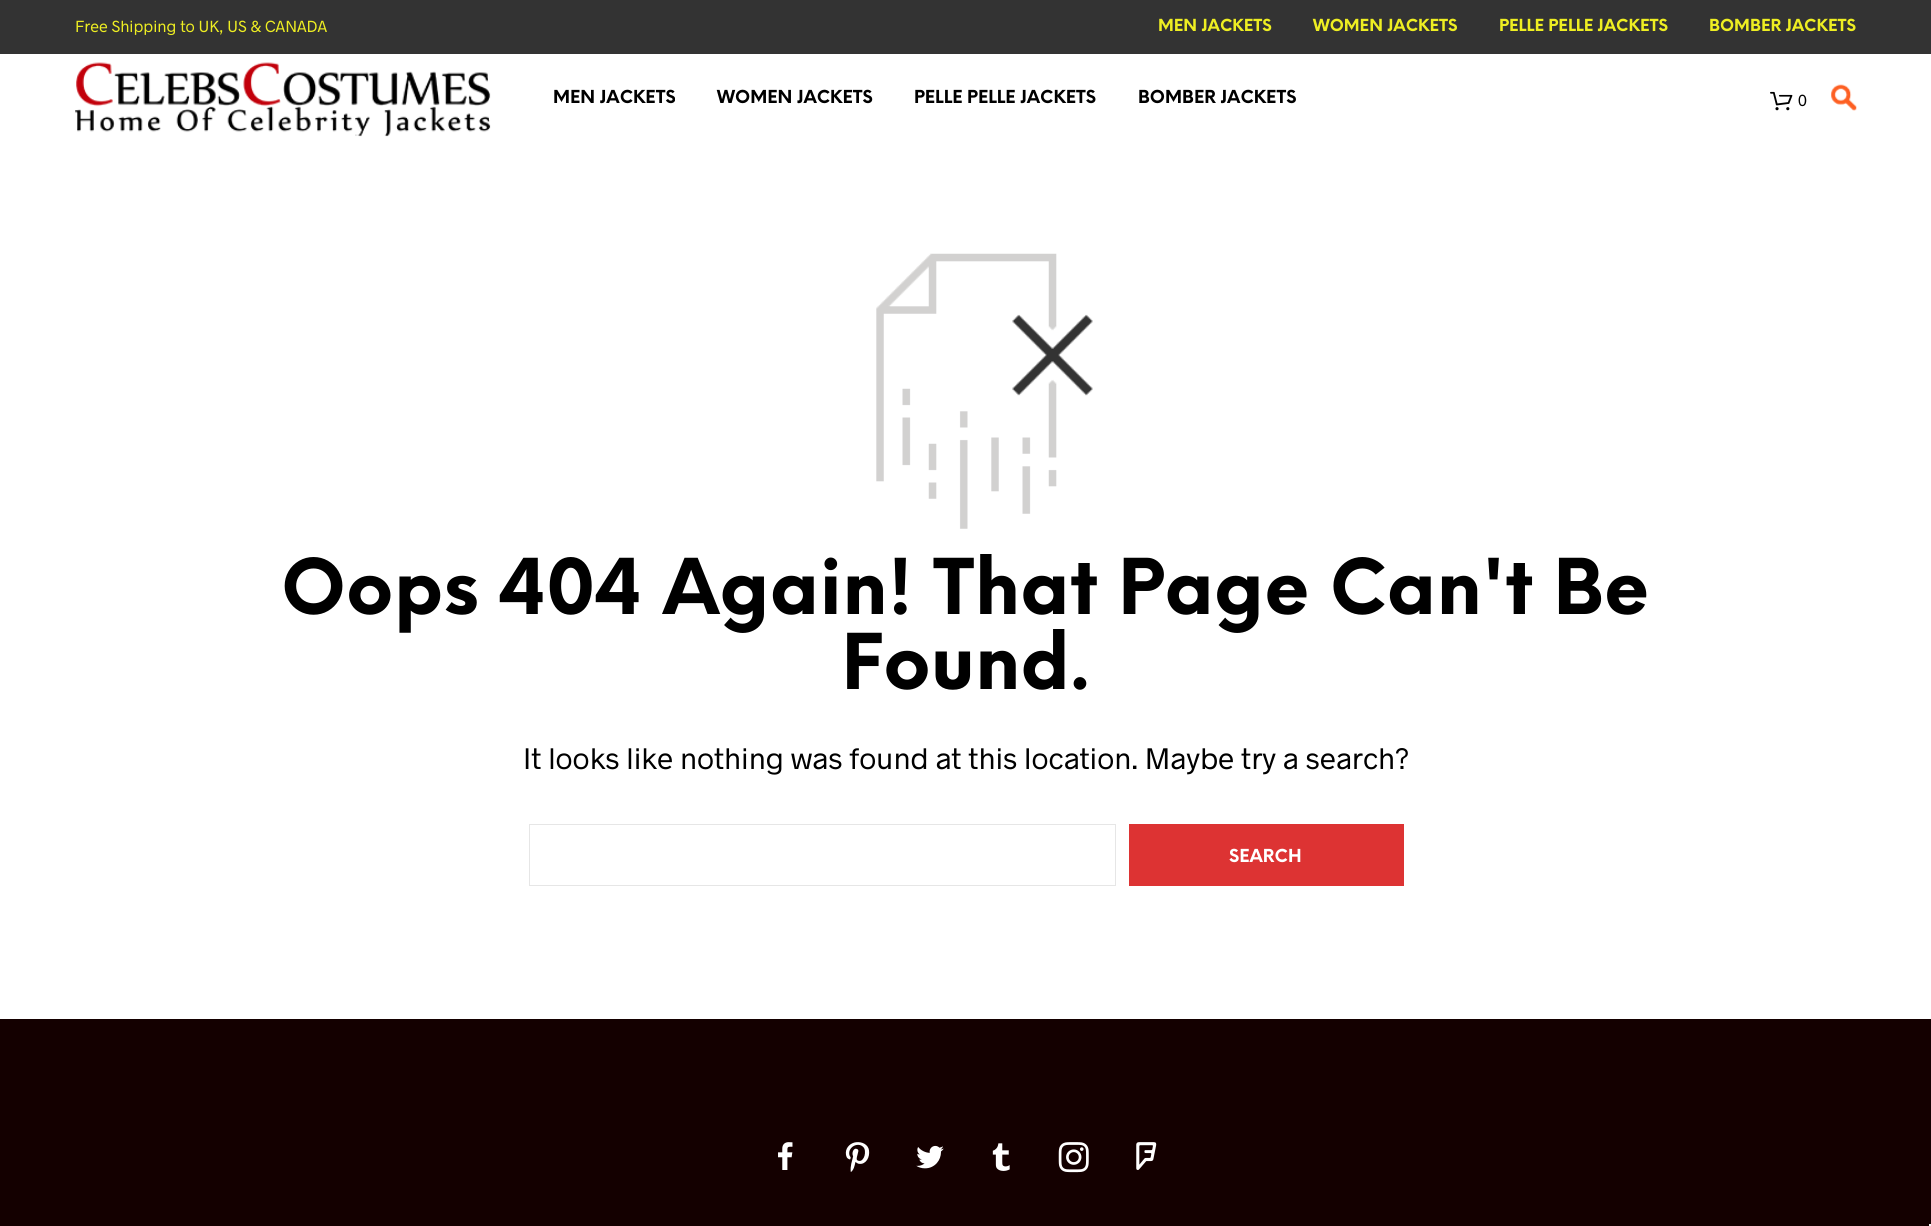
import math
import cairocffi as cairo

surface = cairo.ImageSurface(cairo.FORMAT_RGB24, 1931, 1226)
ctx = cairo.Context(surface)
options = cairo.FontOptions()
options.set_hint_metrics(cairo.HINT_METRICS_OFF)
options.set_hint_style(cairo.HINT_STYLE_NONE)
ctx.set_font_options(options)
ctx.set_miter_limit(4)


def rgb(r, g, b):
    ctx.set_source_rgb(r / 255, g / 255, b / 255)


def face(family, size, italic, bold):
    ctx.select_font_face(family, cairo.FONT_SLANT_ITALIC if italic else cairo.FONT_SLANT_NORMAL, cairo.FONT_WEIGHT_BOLD if bold else cairo.FONT_WEIGHT_NORMAL)
    ctx.set_font_size(size)


def label(x, y, s):
    ctx.move_to(x, y)
    ctx.show_text(s)


def rect(x, y, w, h):
    ctx.rectangle(x, y, w, h)
    ctx.fill()


def image(path, x, y, w, h):
    ctx.save()
    ctx.set_source_surface(cairo.ImageSurface.create_from_png(path), x, y)
    ctx.rectangle(x, y, w, h)
    ctx.fill()
    ctx.restore()


rgb(255, 255, 255)
ctx.paint()
rgb(51, 51, 51)
rect(0, 0, 1931, 54)
face('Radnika', 16.25, 0, 0)
rgb(238, 238, 34)
label(75, 32, 'Free Shipping to UK, US & CANADA')
face('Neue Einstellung', 16.25, 0, 1)
label(1158, 31, 'MEN JACKETS')
label(1313, 31, 'WOMEN JACKETS')
label(1499, 31, 'PELLE PELLE JACKETS')
label(1709, 31, 'BOMBER JACKETS')
image('image0.png', 75, 62, 416, 75)
face('Neue Einstellung', 17.5, 0, 1)
rgb(0, 0, 0)
label(553, 103, 'MEN JACKETS')
label(717, 103, 'WOMEN JACKETS')
label(914, 103, 'PELLE PELLE JACKETS')
label(1138, 103, 'BOMBER JACKETS')
image('image1.png', 1770, 91, 23, 20)
face('Radnika', 16.25, 0, 0)
label(1798, 106, '0')
image('image2.png', 1831, 84, 26, 27)
image('image3.png', 876, 253, 217, 276)
face('Neue Einstellung', 75, 0, 1)
label(281, 614, 'Oops 404 Again! That Page Can\'t Be')
label(841, 689, 'Found.')
face('Radnika', 30, 0, 0)
label(523, 769, 'It looks like nothing was found at this location. Maybe try a search?')
ctx.rectangle(529.5, 824.5, 586, 61)
rgb(230, 230, 230)
ctx.set_line_width(1)
ctx.stroke()
rgb(221, 51, 51)
rect(1129, 824, 275, 62)
face('Neue Einstellung', 17.5, 0, 1)
rgb(255, 255, 255)
label(1229, 862, 'SEARCH')
rgb(20, 0, 0)
rect(0, 1019, 1931, 207)
image('image4.png', 778, 1142, 15, 28)
image('image5.png', 845, 1142, 25, 30)
image('image6.png', 916, 1145, 28, 24)
image('image7.png', 992, 1143, 18, 28)
image('image8.png', 1058, 1142, 31, 31)
image('image9.png', 1136, 1142, 21, 28)
rgb(245, 245, 245)
rect(1929, 1224, 2, 2)
surface.write_to_png('render.png')
